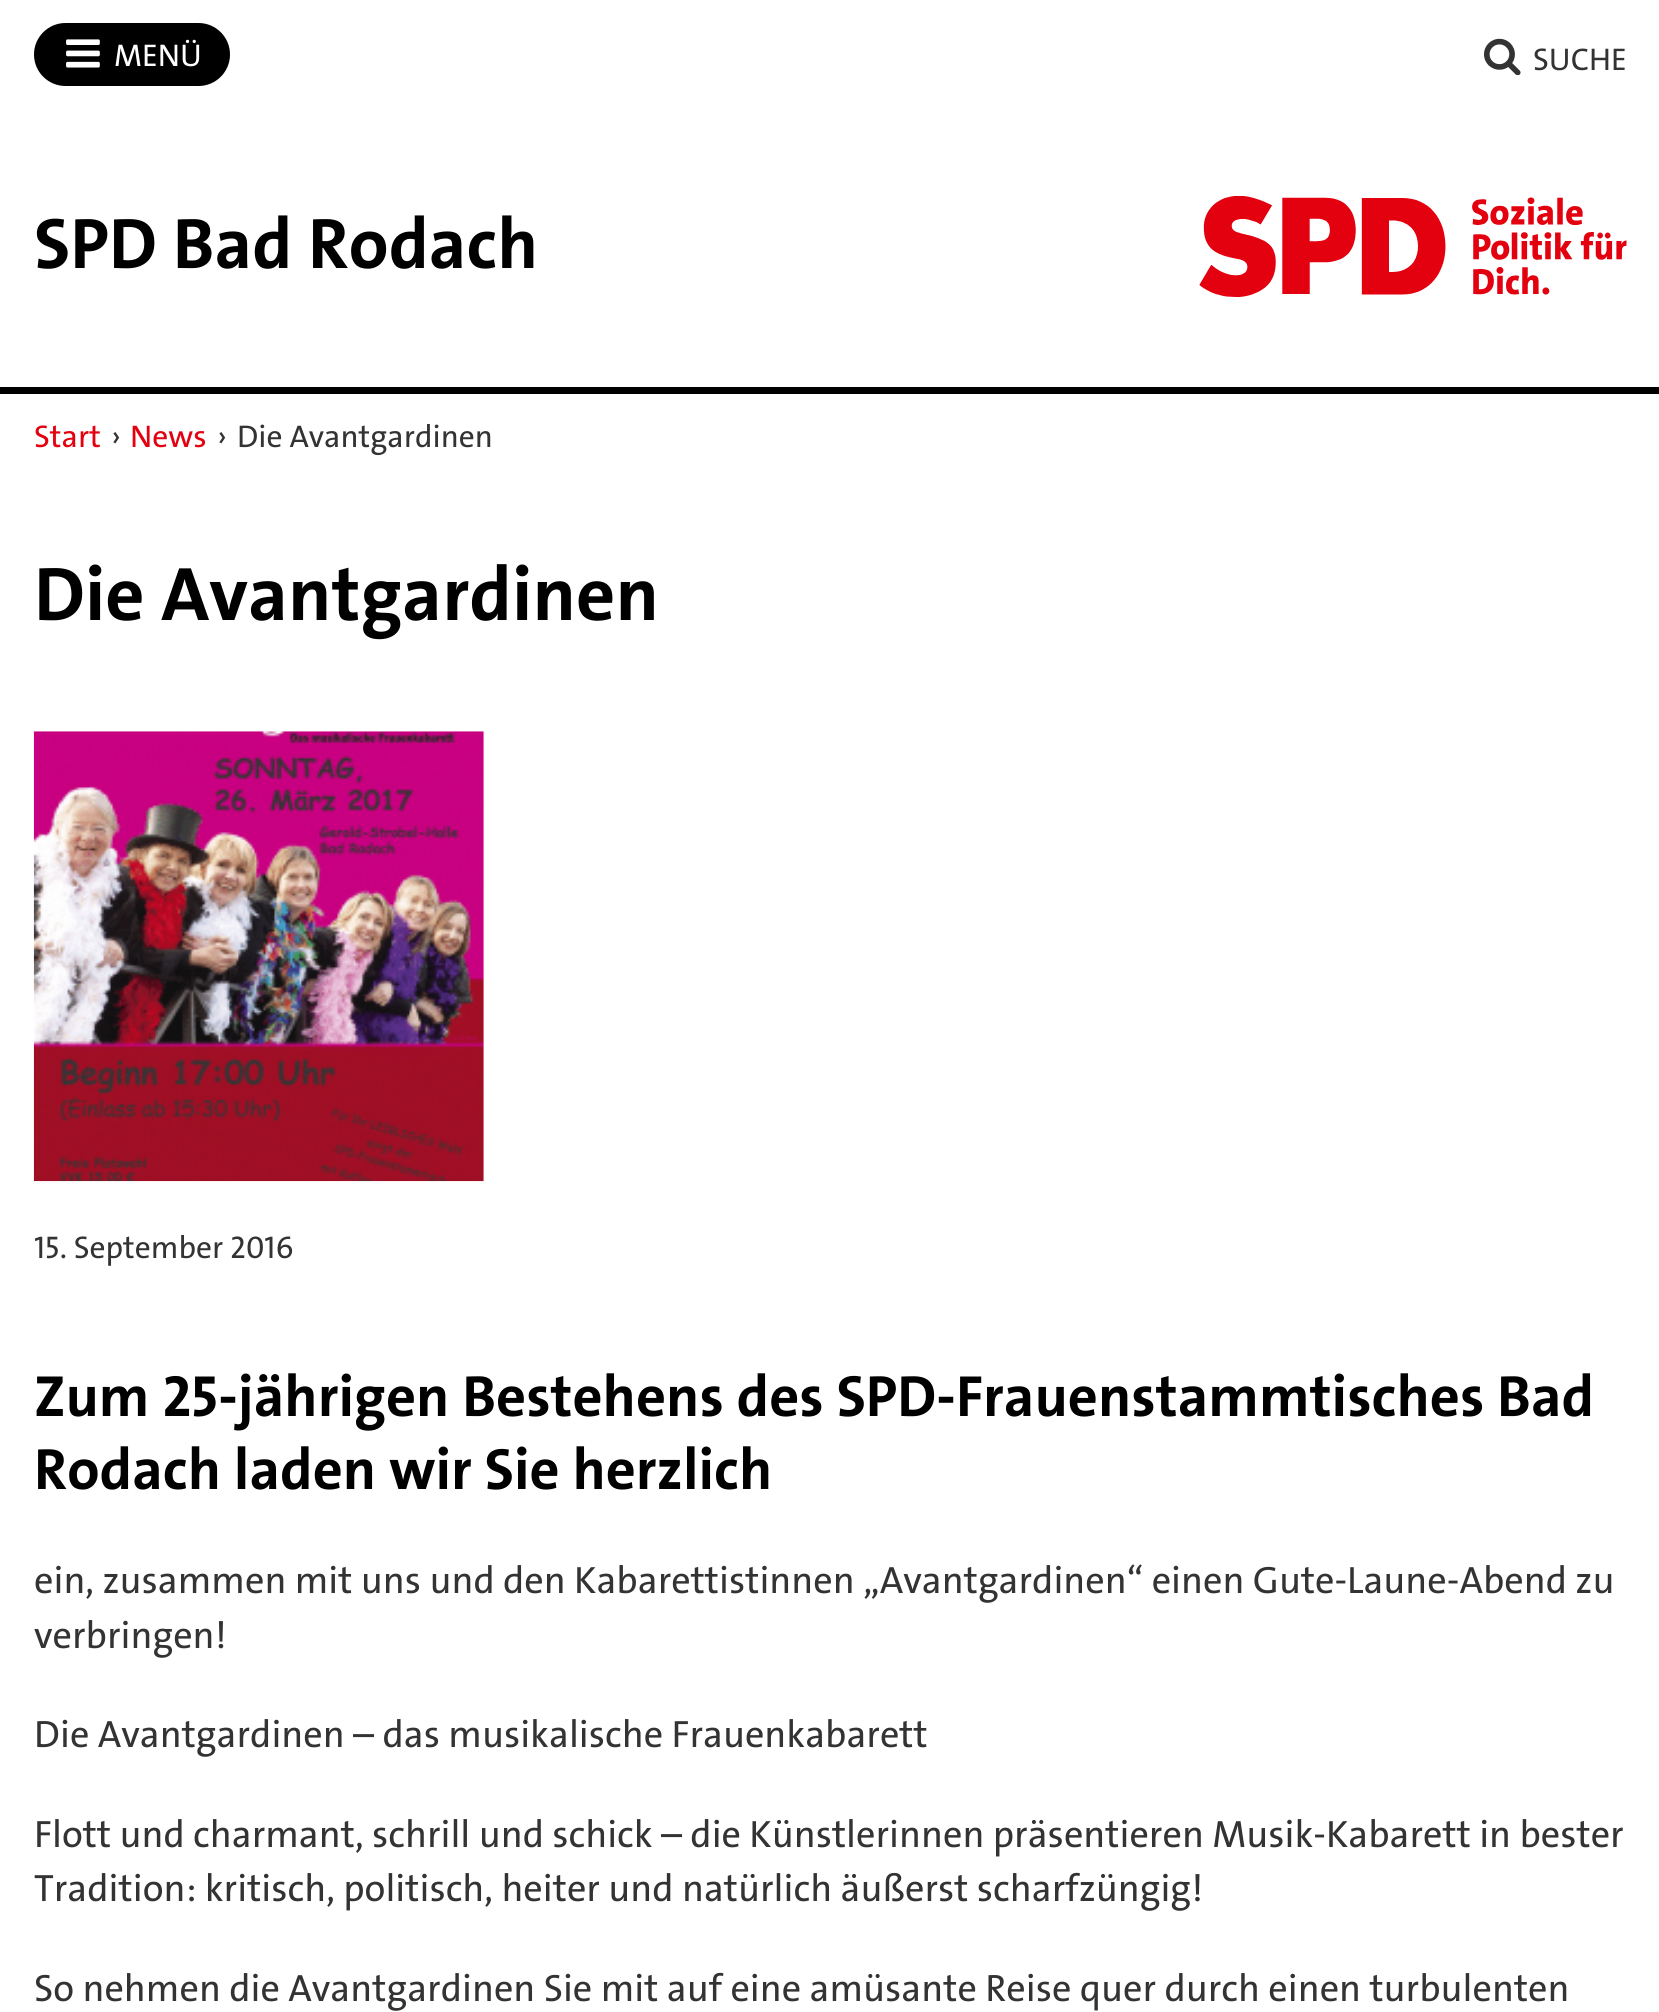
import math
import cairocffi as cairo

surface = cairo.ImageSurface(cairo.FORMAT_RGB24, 1659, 2012)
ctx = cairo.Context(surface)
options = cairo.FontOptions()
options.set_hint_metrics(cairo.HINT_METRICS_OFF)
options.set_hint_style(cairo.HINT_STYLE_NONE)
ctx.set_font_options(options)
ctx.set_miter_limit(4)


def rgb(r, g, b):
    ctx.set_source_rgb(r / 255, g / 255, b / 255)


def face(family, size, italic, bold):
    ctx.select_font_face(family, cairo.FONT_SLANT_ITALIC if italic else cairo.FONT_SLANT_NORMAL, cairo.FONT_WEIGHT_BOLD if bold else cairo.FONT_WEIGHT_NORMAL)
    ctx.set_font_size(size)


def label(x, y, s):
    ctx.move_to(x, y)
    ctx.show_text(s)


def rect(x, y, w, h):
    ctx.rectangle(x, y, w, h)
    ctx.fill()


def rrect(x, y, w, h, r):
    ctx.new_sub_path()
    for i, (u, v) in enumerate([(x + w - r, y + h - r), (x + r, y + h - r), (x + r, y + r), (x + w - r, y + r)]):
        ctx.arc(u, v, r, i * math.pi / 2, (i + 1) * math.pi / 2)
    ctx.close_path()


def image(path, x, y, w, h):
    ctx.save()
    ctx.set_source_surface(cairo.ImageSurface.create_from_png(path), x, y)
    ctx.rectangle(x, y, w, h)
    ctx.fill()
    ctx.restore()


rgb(255, 255, 255)
ctx.paint()
rgb(0, 0, 0)
rrect(36.5, 25.5, 191, 58, 29)
ctx.fill_preserve()
ctx.set_line_width(5)
ctx.stroke()
image('image0.png', 66, 39, 34, 29)
face('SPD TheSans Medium', 31.5, 0, 0)
rgb(255, 255, 255)
label(114, 66, 'MENÜ')
image('image1.png', 1484, 38, 37, 37)
rgb(51, 51, 51)
label(1533, 70, 'SUCHE')
face('SPD TheSans', 72, 0, 1)
rgb(0, 0, 0)
label(34, 268, 'SPD Bad Rodach')
image('image2.png', 1199, 196, 428, 101)
rect(0, 387, 1659, 7)
face('SPD TheSans Medium', 31.5, 0, 0)
rgb(227, 0, 15)
label(34, 447, 'Start')
rgb(51, 51, 51)
label(111, 447, '›')
rgb(227, 0, 15)
label(130, 447, 'News')
rgb(51, 51, 51)
label(217, 447, '›')
label(237, 447, 'Die Avantgardinen')
face('SPD TheSans', 76.5, 0, 1)
rgb(0, 0, 0)
label(34, 620, 'Die Avantgardinen')
image('image3.png', 33, 731, 451, 451)
face('SPD TheSans Medium', 31.5, 0, 0)
rgb(51, 51, 51)
label(34, 1258, '15. September 2016')
face('SPD TheSans', 58.5, 0, 1)
rgb(0, 0, 0)
label(34, 1416, 'Zum 25-jährigen Bestehens des SPD-Frauenstammtisches Bad')
label(34, 1489, 'Rodach laden wir Sie herzlich')
face('SPD TheSans Medium', 38.25, 0, 0)
rgb(51, 51, 51)
label(34, 1593, 'ein, zusammen mit uns und den Kabarettistinnen „Avantgardinen“ einen Gute-Laune-Abend zu')
label(34, 1648, 'verbringen!')
label(34, 1747, 'Die Avantgardinen – das musikalische Frauenkabarett')
label(34, 1847, 'Flott und charmant, schrill und schick – die Künstlerinnen präsentieren Musik-Kabarett in bester')
label(34, 1901, 'Tradition: kritisch, politisch, heiter und natürlich äußerst scharfzüngig!')
label(34, 2001, 'So nehmen die Avantgardinen Sie mit auf eine amüsante Reise quer durch einen turbulenten')
surface.write_to_png('render.png')
